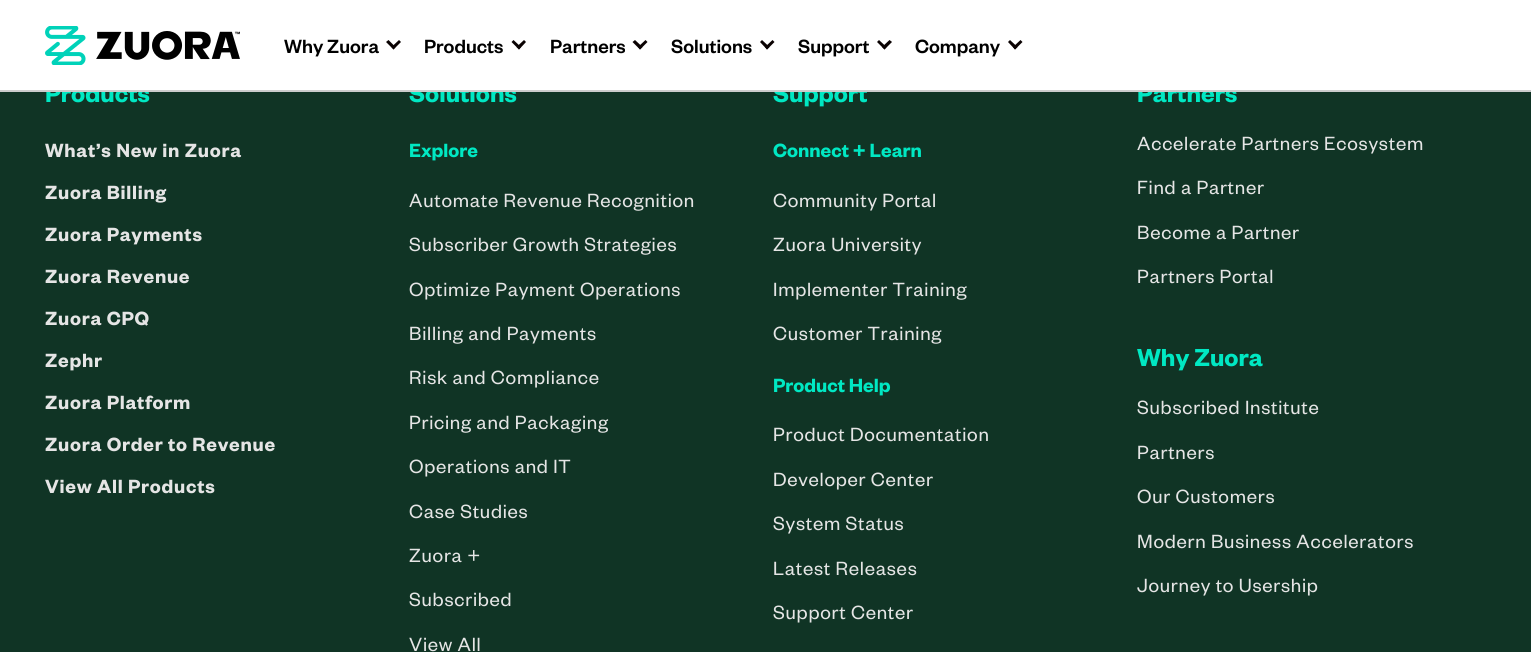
import math
import cairocffi as cairo

surface = cairo.ImageSurface(cairo.FORMAT_RGB24, 1531, 652)
ctx = cairo.Context(surface)
options = cairo.FontOptions()
options.set_hint_metrics(cairo.HINT_METRICS_OFF)
options.set_hint_style(cairo.HINT_STYLE_NONE)
ctx.set_font_options(options)
ctx.set_miter_limit(4)


def rgb(r, g, b):
    ctx.set_source_rgb(r / 255, g / 255, b / 255)


def face(family, size, italic, bold):
    ctx.select_font_face(family, cairo.FONT_SLANT_ITALIC if italic else cairo.FONT_SLANT_NORMAL, cairo.FONT_WEIGHT_BOLD if bold else cairo.FONT_WEIGHT_NORMAL)
    ctx.set_font_size(size)


def label(x, y, s):
    ctx.move_to(x, y)
    ctx.show_text(s)


def tracked(x, y, s, letter, word):
    ctx.move_to(x, y)
    for ch in s:
        ctx.show_text(ch)
        ctx.rel_move_to(letter + word * (ch == ' '), 0)


def rect(x, y, w, h):
    ctx.rectangle(x, y, w, h)
    ctx.fill()


def image(path, x, y, w, h):
    ctx.save()
    ctx.set_source_surface(cairo.ImageSurface.create_from_png(path), x, y)
    ctx.rectangle(x, y, w, h)
    ctx.fill()
    ctx.restore()


rgb(16, 52, 37)
ctx.paint()
face('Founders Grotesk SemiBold', 27, 0, 0)
rgb(0, 232, 195)
label(45, 102, 'Products')
label(409, 102, 'Solutions')
label(773, 102, 'Support')
label(1137, 102, 'Partners')
rgb(255, 255, 255)
rect(0, 0, 1531, 90)
rgb(204, 204, 204)
rect(0, 90, 1531, 2)
image('image0.png', 45, 26, 195, 39)
face('Founders Grotesk Medium', 21, 0, 0)
rgb(0, 0, 0)
label(284, 53, 'Why Zuora')
rgb(10, 2, 2)
ctx.new_path()
ctx.move_to(399, 40)
ctx.line_to(401, 42)
ctx.line_to(393.5, 49.5)
ctx.line_to(391.5, 47)
ctx.close_path()
ctx.fill()
ctx.new_path()
ctx.move_to(388.5, 40)
ctx.line_to(395.5, 47)
ctx.line_to(393.5, 49.5)
ctx.line_to(386, 42)
ctx.close_path()
ctx.fill()
rgb(0, 0, 0)
label(424, 53, 'Products')
rgb(10, 2, 2)
ctx.new_path()
ctx.move_to(524, 40)
ctx.line_to(526, 42)
ctx.line_to(519, 49.5)
ctx.line_to(516.5, 47)
ctx.close_path()
ctx.fill()
ctx.new_path()
ctx.move_to(513.5, 40)
ctx.line_to(521, 47)
ctx.line_to(519, 49.5)
ctx.line_to(511.5, 42)
ctx.close_path()
ctx.fill()
rgb(0, 0, 0)
label(550, 53, 'Partners')
rgb(10, 2, 2)
ctx.new_path()
ctx.move_to(645.5, 40)
ctx.line_to(647.5, 42)
ctx.line_to(640, 49.5)
ctx.line_to(638, 47)
ctx.close_path()
ctx.fill()
ctx.new_path()
ctx.move_to(635, 40)
ctx.line_to(642.5, 47)
ctx.line_to(640, 49.5)
ctx.line_to(632.5, 42)
ctx.close_path()
ctx.fill()
rgb(0, 0, 0)
label(671, 53, 'Solutions')
rgb(10, 2, 2)
ctx.new_path()
ctx.move_to(772.5, 40)
ctx.line_to(774.5, 42)
ctx.line_to(767, 49.5)
ctx.line_to(765, 47)
ctx.close_path()
ctx.fill()
ctx.new_path()
ctx.move_to(762, 40)
ctx.line_to(769.5, 47)
ctx.line_to(767, 49.5)
ctx.line_to(760, 42)
ctx.close_path()
ctx.fill()
rgb(0, 0, 0)
label(798, 53, 'Support')
rgb(10, 2, 2)
ctx.new_path()
ctx.move_to(889.5, 40)
ctx.line_to(892, 42)
ctx.line_to(884.5, 49.5)
ctx.line_to(882, 47)
ctx.close_path()
ctx.fill()
ctx.new_path()
ctx.move_to(879, 40)
ctx.line_to(886.5, 47)
ctx.line_to(884.5, 49.5)
ctx.line_to(877, 42)
ctx.close_path()
ctx.fill()
rgb(0, 0, 0)
label(915, 53, 'Company')
rgb(10, 2, 2)
ctx.new_path()
ctx.move_to(1020.5, 40)
ctx.line_to(1022.5, 42)
ctx.line_to(1015, 49.5)
ctx.line_to(1013, 47)
ctx.close_path()
ctx.fill()
ctx.new_path()
ctx.move_to(1010, 40)
ctx.line_to(1017.5, 47)
ctx.line_to(1015, 49.5)
ctx.line_to(1008, 42)
ctx.close_path()
ctx.fill()
face('Founders Grotesk SemiBold', 21, 0, 0)
rgb(229, 229, 229)
tracked(45, 157, 'What’s New in Zuora', 0.75, 0)
tracked(45, 199, 'Zuora Billing', 0.75, 0)
tracked(45, 241, 'Zuora Payments', 0.75, 0)
tracked(45, 283, 'Zuora Revenue', 0.75, 0)
tracked(45, 325, 'Zuora CPQ', 0.75, 0)
tracked(45, 367, 'Zephr', 0.75, 0)
tracked(45, 409, 'Zuora Platform', 0.75, 0)
tracked(45, 451, 'Zuora Order to Revenue', 0.75, 0)
tracked(45, 493, 'View All Products', 0.75, 0)
rgb(0, 232, 195)
label(409, 157, 'Explore')
face('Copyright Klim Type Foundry', 21, 0, 0)
rgb(229, 229, 229)
tracked(409, 207, 'Automate Revenue Recognition', 0.75, 0)
tracked(409, 251, 'Subscriber Growth Strategies', 0.75, 0)
tracked(409, 296, 'Optimize Payment Operations', 0.75, 0)
tracked(409, 340, 'Billing and Payments', 0.75, 0)
tracked(409, 384, 'Risk and Compliance', 0.75, 0)
tracked(409, 429, 'Pricing and Packaging', 0.75, 0)
tracked(409, 473, 'Operations and IT', 0.75, 0)
tracked(409, 518, 'Case Studies', 0.75, 0)
tracked(409, 562, 'Zuora +', 0.75, 0)
tracked(409, 606, 'Subscribed', 0.75, 0)
tracked(409, 651, 'View All', 0.75, 0)
face('Founders Grotesk SemiBold', 21, 0, 0)
rgb(0, 232, 195)
label(773, 157, 'Connect + Learn')
face('Copyright Klim Type Foundry', 21, 0, 0)
rgb(229, 229, 229)
tracked(773, 207, 'Community Portal', 0.75, 0)
tracked(773, 251, 'Zuora University', 0.75, 0)
tracked(773, 296, 'Implementer Training', 0.75, 0)
tracked(773, 340, 'Customer Training', 0.75, 0)
face('Founders Grotesk SemiBold', 21, 0, 0)
rgb(0, 232, 195)
label(773, 392, 'Product Help')
face('Copyright Klim Type Foundry', 21, 0, 0)
rgb(229, 229, 229)
tracked(773, 441, 'Product Documentation', 0.75, 0)
tracked(773, 486, 'Developer Center', 0.75, 0)
tracked(773, 530, 'System Status', 0.75, 0)
tracked(773, 575, 'Latest Releases', 0.75, 0)
tracked(773, 619, 'Support Center', 0.75, 0)
tracked(1137, 150, 'Accelerate Partners Ecosystem', 0.75, 0)
tracked(1137, 194, 'Find a Partner', 0.75, 0)
tracked(1137, 239, 'Become a Partner', 0.75, 0)
tracked(1137, 283, 'Partners Portal', 0.75, 0)
face('Founders Grotesk SemiBold', 27, 0, 0)
rgb(0, 232, 195)
label(1137, 366, 'Why Zuora')
face('Copyright Klim Type Foundry', 21, 0, 0)
rgb(229, 229, 229)
tracked(1137, 414, 'Subscribed Institute', 0.75, 0)
tracked(1137, 459, 'Partners', 0.75, 0)
tracked(1137, 503, 'Our Customers', 0.75, 0)
tracked(1137, 548, 'Modern Business Accelerators', 0.75, 0)
tracked(1137, 592, 'Journey to Usership', 0.75, 0)
surface.write_to_png('render.png')
